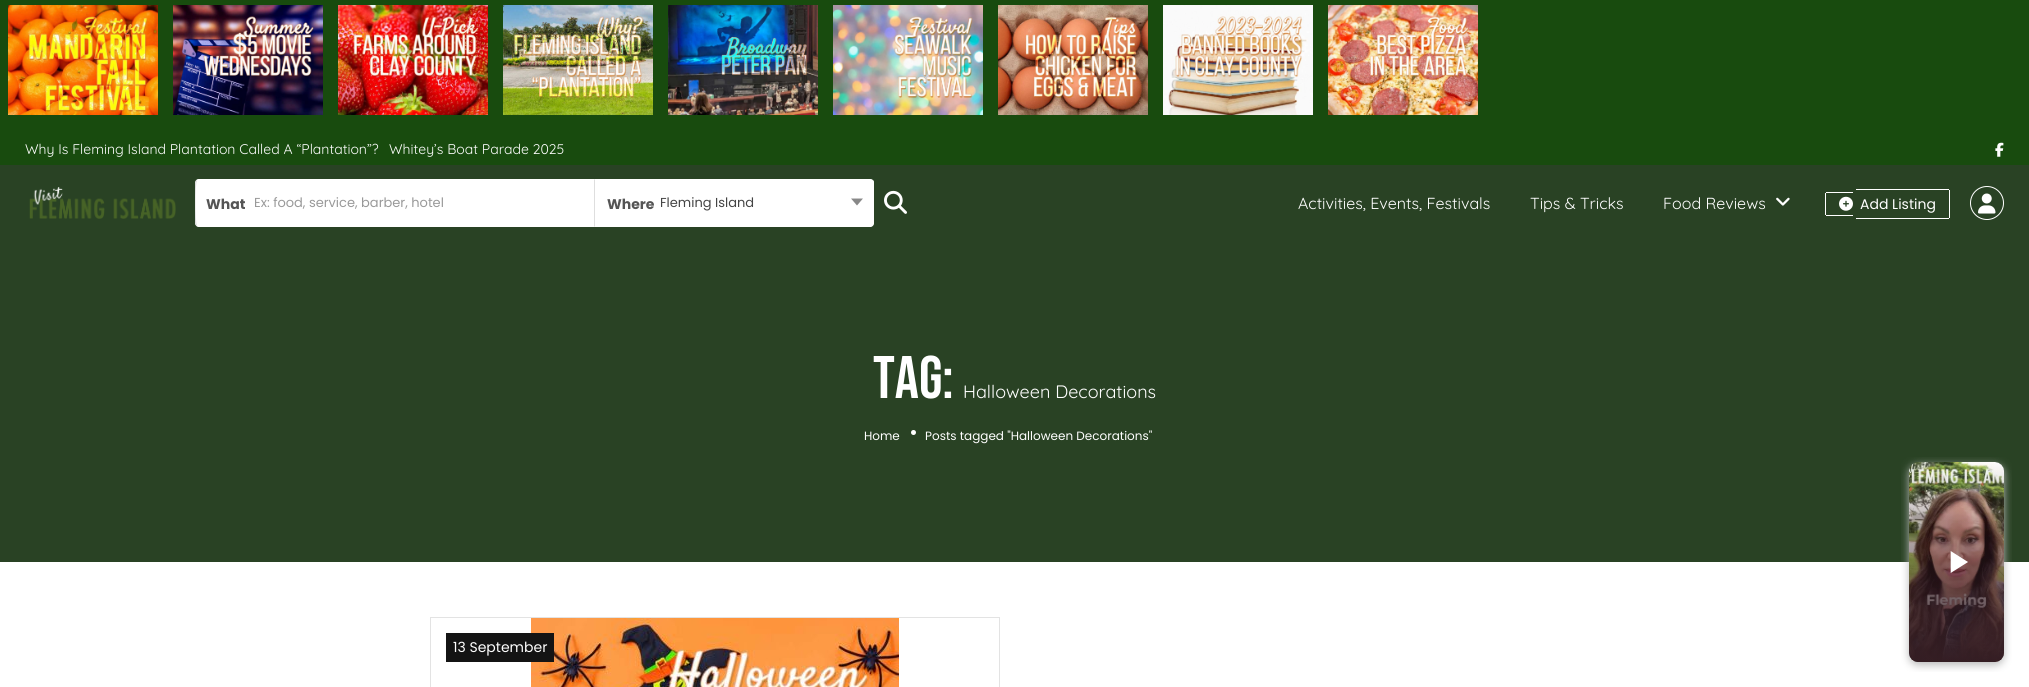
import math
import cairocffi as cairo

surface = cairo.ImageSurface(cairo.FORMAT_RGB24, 2029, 687)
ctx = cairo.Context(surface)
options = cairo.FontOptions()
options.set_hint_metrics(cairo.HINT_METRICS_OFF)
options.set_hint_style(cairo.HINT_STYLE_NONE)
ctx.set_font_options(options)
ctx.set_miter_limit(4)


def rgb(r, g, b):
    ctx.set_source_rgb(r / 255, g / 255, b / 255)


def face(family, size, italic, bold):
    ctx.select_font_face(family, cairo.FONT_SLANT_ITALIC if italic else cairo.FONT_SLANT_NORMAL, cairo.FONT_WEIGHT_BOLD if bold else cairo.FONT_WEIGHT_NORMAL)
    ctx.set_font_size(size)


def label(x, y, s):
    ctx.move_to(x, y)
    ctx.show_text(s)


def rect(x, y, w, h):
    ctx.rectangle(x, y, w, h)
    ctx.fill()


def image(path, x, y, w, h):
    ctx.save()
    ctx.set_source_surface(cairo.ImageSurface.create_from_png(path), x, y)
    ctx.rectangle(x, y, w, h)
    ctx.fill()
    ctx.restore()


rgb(255, 255, 255)
ctx.paint()
rgb(24, 75, 14)
rect(0, 0, 2029, 165)
image('image0.png', 8, 5, 150, 110)
image('image1.png', 173, 5, 150, 110)
image('image2.png', 338, 5, 150, 110)
image('image3.png', 503, 5, 150, 110)
image('image4.png', 668, 5, 150, 110)
image('image5.png', 833, 5, 150, 110)
image('image6.png', 998, 5, 150, 110)
image('image7.png', 1163, 5, 150, 110)
image('image8.png', 1328, 5, 150, 110)
face('Quicksand', 14, 0, 0)
rgb(255, 255, 255)
label(25, 154, 'Why Is Fleming Island Plantation Called A “Plantation”?')
label(389, 154, 'Whitey’s Boat Parade 2025')
image('image9.png', 1995, 142, 9, 15)
rgb(41, 66, 36)
rect(0, 165, 2029, 397)
image('image10.png', 29, 187, 147, 32)
rgb(255, 255, 255)
ctx.new_path()
ctx.move_to(199, 179)
ctx.line_to(594, 179)
ctx.line_to(594, 227)
ctx.line_to(199, 227)
ctx.curve_to(197, 227, 195, 225, 195, 223)
ctx.line_to(195, 183)
ctx.curve_to(195, 181, 197, 179, 199, 179)
ctx.close_path()
ctx.fill()
ctx.new_path()
ctx.move_to(199, 179)
ctx.line_to(196, 180)
ctx.line_to(197, 181)
ctx.line_to(199, 180)
ctx.line_to(593, 180)
ctx.line_to(594, 179)
ctx.close_path()
ctx.fill()
ctx.new_path()
ctx.move_to(594, 227)
ctx.line_to(593, 226)
ctx.line_to(199, 226)
ctx.line_to(197, 225)
ctx.line_to(196, 226)
ctx.line_to(199, 227)
ctx.close_path()
ctx.fill()
rgb(222, 222, 222)
ctx.new_path()
ctx.move_to(195, 183)
ctx.line_to(195, 223)
ctx.curve_to(195, 224, 196, 225, 196, 226)
ctx.line_to(197, 225)
ctx.curve_to(195, 224, 195, 182, 197, 181)
ctx.line_to(196, 180)
ctx.close_path()
ctx.fill()
face('Poppins', 14, 0, 1)
rgb(85, 85, 85)
label(206, 209, 'What')
face('Poppins', 13, 0, 0)
rgb(153, 153, 153)
label(254, 207, 'Ex: food, service, barber, hotel')
rgb(255, 255, 255)
ctx.new_path()
ctx.move_to(594, 179)
ctx.line_to(870, 179)
ctx.curve_to(872, 179, 874, 181, 874, 183)
ctx.line_to(874, 223)
ctx.curve_to(874, 225, 872, 227, 870, 227)
ctx.line_to(594, 227)
ctx.close_path()
ctx.fill()
ctx.new_path()
ctx.move_to(594, 179)
ctx.line_to(595, 180)
ctx.line_to(870, 180)
ctx.line_to(872, 181)
ctx.line_to(873, 180)
ctx.line_to(870, 179)
ctx.close_path()
ctx.fill()
ctx.new_path()
ctx.move_to(874, 223)
ctx.line_to(874, 183)
ctx.curve_to(874, 182, 874, 181, 873, 180)
ctx.line_to(872, 181)
ctx.curve_to(874, 182, 874, 224, 872, 225)
ctx.line_to(873, 226)
ctx.close_path()
ctx.fill()
ctx.new_path()
ctx.move_to(870, 227)
ctx.line_to(873, 226)
ctx.line_to(872, 225)
ctx.line_to(870, 226)
ctx.line_to(595, 226)
ctx.line_to(594, 227)
ctx.close_path()
ctx.fill()
rgb(222, 222, 222)
ctx.new_path()
ctx.move_to(594, 179)
ctx.line_to(594, 227)
ctx.line_to(595, 226)
ctx.line_to(595, 180)
ctx.close_path()
ctx.fill()
face('Poppins', 14, 0, 1)
rgb(85, 85, 85)
label(607, 209, 'Where')
face('Poppins', 13, 0, 0)
rgb(68, 68, 68)
label(660, 207, 'Fleming Island')
rgb(136, 136, 136)
ctx.new_path()
ctx.move_to(851, 198.5)
ctx.line_to(863, 198.5)
ctx.line_to(857, 205.5)
ctx.close_path()
ctx.fill()
image('image11.png', 884, 190, 23, 24)
face('Quicksand', 16, 0, 0)
rgb(255, 255, 255)
label(1298, 209, 'Activities, Events, Festivals')
label(1530, 209, 'Tips & Tricks')
label(1663, 209, 'Food Reviews')
image('image12.png', 1776, 197, 14, 9)
rect(1826, 192, 27, 1)
rect(1826, 215, 27, 1)
rect(1825, 193, 1, 22)
rect(1856, 189, 93, 1)
rect(1949, 190, 1, 28)
rect(1856, 218, 93, 1)
image('image13.png', 1839, 196, 14, 15)
face('Poppins', 14, 0, 0)
label(1860, 209, 'Add Listing')
ctx.new_path()
ctx.arc(1987, 203, 16.5, 0, 2 * math.pi)
ctx.set_line_width(1)
ctx.stroke()
image('image14.png', 1978, 193, 18, 21)
face('Bebas Neue', 60, 0, 0)
label(873, 398, 'Tag:')
face('Quicksand', 18, 0, 0)
label(963, 398, 'Halloween Decorations')
face('Poppins', 12, 0, 0)
label(864, 440, 'Home')
ctx.new_path()
ctx.arc(913.5, 432.5, 2.5, 0, 2 * math.pi)
ctx.fill()
label(925, 440, 'Posts tagged "Halloween Decorations"')
ctx.rectangle(430.5, 617.5, 569, 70)
rgb(227, 227, 227)
ctx.stroke()
image('image15.png', 531, 618, 368, 69)
rgb(20, 20, 20)
rect(446, 633, 108, 29)
face('Poppins', 14, 0, 0)
rgb(255, 255, 255)
label(453, 652, '13 September')
image('image16.png', 1901, 457, 111, 215)
surface.write_to_png('render.png')
